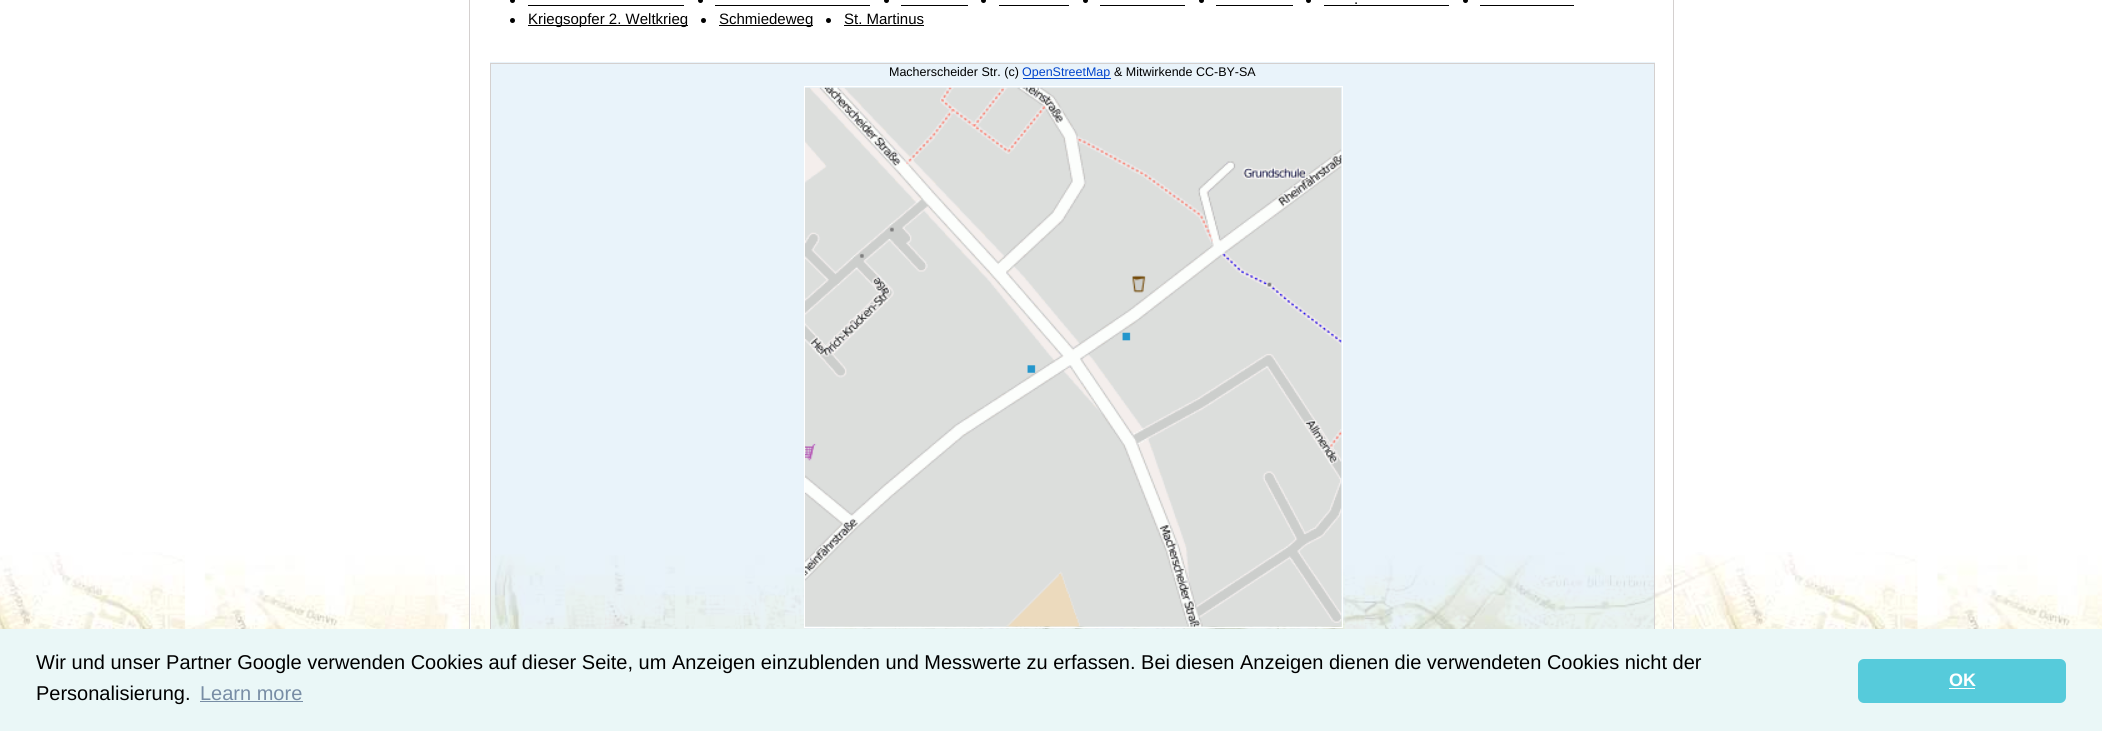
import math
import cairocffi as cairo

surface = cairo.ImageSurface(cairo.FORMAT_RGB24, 2102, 731)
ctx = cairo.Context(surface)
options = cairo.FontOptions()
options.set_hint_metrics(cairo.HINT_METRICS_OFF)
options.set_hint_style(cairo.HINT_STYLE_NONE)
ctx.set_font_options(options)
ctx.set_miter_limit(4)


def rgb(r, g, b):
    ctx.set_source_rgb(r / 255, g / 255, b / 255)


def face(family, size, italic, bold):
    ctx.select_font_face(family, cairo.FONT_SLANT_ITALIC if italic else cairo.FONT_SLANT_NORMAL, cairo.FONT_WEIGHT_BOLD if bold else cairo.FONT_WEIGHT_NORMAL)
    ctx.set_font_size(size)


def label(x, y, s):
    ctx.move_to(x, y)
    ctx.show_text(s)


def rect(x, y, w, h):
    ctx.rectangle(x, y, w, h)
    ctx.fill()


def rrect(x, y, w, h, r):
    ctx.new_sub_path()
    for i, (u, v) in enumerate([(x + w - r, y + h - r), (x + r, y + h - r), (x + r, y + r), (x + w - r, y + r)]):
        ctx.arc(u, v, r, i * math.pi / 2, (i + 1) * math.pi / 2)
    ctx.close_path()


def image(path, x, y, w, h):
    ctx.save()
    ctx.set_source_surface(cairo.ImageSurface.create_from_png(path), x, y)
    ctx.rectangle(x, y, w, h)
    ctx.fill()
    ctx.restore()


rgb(255, 255, 255)
ctx.paint()
image('image0.png', 0, 552, 2102, 77)
image('image1.png', 471, 619, 2, 10)
ctx.rectangle(470.5, -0.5, 1202, 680)
rgb(255, 255, 255)
ctx.set_line_width(1)
ctx.stroke()
rgb(0, 0, 0)
ctx.arc(512.5, 0.5, 2.5, 0, 2 * math.pi)
ctx.fill()
rect(528, 5, 156, 1)
ctx.arc(700.5, 0.5, 2.5, 0, 2 * math.pi)
ctx.fill()
rect(715, 5, 155, 1)
ctx.arc(886.5, 0.5, 2.5, 0, 2 * math.pi)
ctx.fill()
rect(901, 5, 67, 1)
ctx.arc(983.5, 0.5, 2.5, 0, 2 * math.pi)
ctx.fill()
rect(999, 5, 70, 1)
ctx.arc(1085.5, 0.5, 2.5, 0, 2 * math.pi)
ctx.fill()
rect(1100, 5, 85, 1)
ctx.arc(1201.5, 0.5, 2.5, 0, 2 * math.pi)
ctx.fill()
rect(1216, 5, 77, 1)
ctx.arc(1308.5, 0.5, 2.5, 0, 2 * math.pi)
ctx.fill()
rect(1324, 5, 125, 1)
ctx.arc(1465.5, 0.5, 2.5, 0, 2 * math.pi)
ctx.fill()
rect(1480, 5, 94, 1)
ctx.arc(512.5, 20.5, 2.5, 0, 2 * math.pi)
ctx.fill()
rect(528, 25, 160, 1)
ctx.arc(703.5, 20.5, 2.5, 0, 2 * math.pi)
ctx.fill()
rect(719, 25, 94, 1)
ctx.arc(828.5, 20.5, 2.5, 0, 2 * math.pi)
ctx.fill()
rect(844, 25, 80, 1)
ctx.set_source_rgba(0.569, 0.765, 0.902, 0.2)
rect(490, 62, 1165, 567)
ctx.rectangle(490.5, 63.5, 1164, 576)
rgb(212, 208, 207)
ctx.stroke()
rgb(0, 68, 204)
rect(1023, 78, 88, 1)
ctx.rectangle(804.5, 86.5, 538, 541)
rgb(255, 255, 255)
ctx.stroke()
image('image2.png', 805, 87, 537, 540)
ctx.rectangle(469.5, -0.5, 1204, 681)
rgb(212, 208, 207)
ctx.stroke()
face('Liberation Sans', 15, 0, 0)
rgb(0, 0, 0)
label(1354, 4, '.')
label(528, 24, 'Kriegsopfer 2. Weltkrieg')
label(719, 24, 'Schmiedeweg')
label(844, 24, 'St. Martinus')
face('Liberation Sans', 12.5, 0, 0)
label(889, 76, 'Macherscheider Str. (c)')
rgb(0, 68, 204)
label(1022, 76, 'OpenStreetMap')
rgb(0, 0, 0)
label(1114, 76, '& Mitwirkende CC-BY-SA')
rgb(234, 247, 247)
rect(0, 629, 2102, 102)
face('Liberation Sans', 20, 0, 0)
rgb(0, 0, 0)
label(36, 669, 'Wir und unser Partner Google verwenden Cookies auf dieser Seite, um Anzeigen einzublenden und Messwerte zu erfassen. Bei diesen Anzeigen dienen die verwendeten Cookies nicht der')
label(36, 700, 'Personalisierung.')
rgb(120, 141, 165)
label(200, 700, 'Learn more')
rect(200, 701, 103, 1)
rgb(86, 203, 219)
rrect(1858, 659, 208, 44, 6)
ctx.fill()
face('Liberation Sans', 18, 0, 1)
rgb(255, 255, 255)
label(1949, 686, 'OK')
rect(1949, 688, 26, 1)
surface.write_to_png('render.png')
